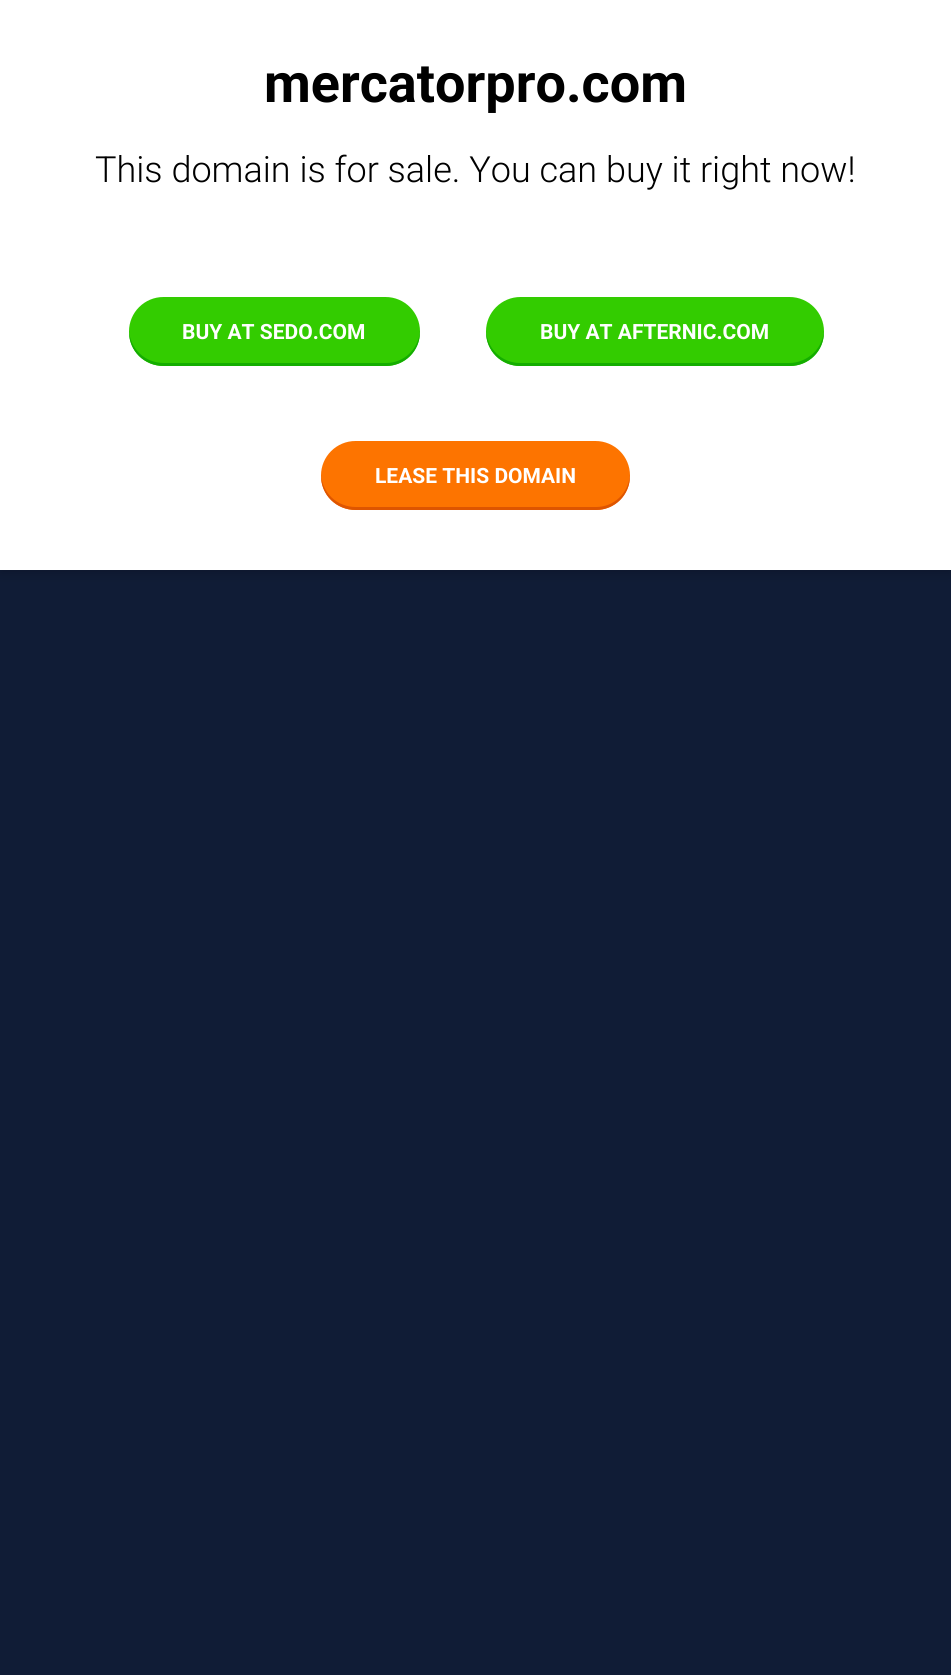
import math
import cairocffi as cairo

surface = cairo.ImageSurface(cairo.FORMAT_RGB24, 951, 1675)
ctx = cairo.Context(surface)
options = cairo.FontOptions()
options.set_hint_metrics(cairo.HINT_METRICS_OFF)
options.set_hint_style(cairo.HINT_STYLE_NONE)
ctx.set_font_options(options)
ctx.set_miter_limit(4)


def rgb(r, g, b):
    ctx.set_source_rgb(r / 255, g / 255, b / 255)


def face(family, size, italic, bold):
    ctx.select_font_face(family, cairo.FONT_SLANT_ITALIC if italic else cairo.FONT_SLANT_NORMAL, cairo.FONT_WEIGHT_BOLD if bold else cairo.FONT_WEIGHT_NORMAL)
    ctx.set_font_size(size)


def label(x, y, s):
    ctx.move_to(x, y)
    ctx.show_text(s)


def rect(x, y, w, h):
    ctx.rectangle(x, y, w, h)
    ctx.fill()


def rrect(x, y, w, h, r):
    ctx.new_sub_path()
    for i, (u, v) in enumerate([(x + w - r, y + h - r), (x + r, y + h - r), (x + r, y + r), (x + w - r, y + r)]):
        ctx.arc(u, v, r, i * math.pi / 2, (i + 1) * math.pi / 2)
    ctx.close_path()


def soft_shadow(x, y, w, h, r, blur, alpha):
    ctx.push_group_with_content(cairo.CONTENT_ALPHA)
    ctx.set_operator(cairo.OPERATOR_SOURCE)
    for i in range(15, -16, -2):
        e = blur * i / 6
        if min(w, h) + 2 * e > 0:
            ctx.set_source_rgba(0, 0, 0, alpha * math.erfc((i - 1) / 8.5) / 2)
            rrect(x - e, y - e, w + 2 * e, h + 2 * e, max(0, min(r + e + blur * .6, min(w, h) / 2 + e)))
            ctx.fill()
    ctx.mask(ctx.pop_group())


rgb(16, 28, 54)
ctx.paint()
rgb(0, 0, 0)
soft_shadow(0, 3, 951, 570, 0, 6, 0.2)
rgb(255, 255, 255)
rect(0, 0, 951, 570)
face('Roboto', 54, 0, 1)
rgb(0, 0, 0)
label(264, 102, 'mercatorpro.com')
face('Roboto Light', 36, 0, 0)
label(95, 182, 'This domain is for sale. You can buy it right now!')
rgb(51, 204, 0)
rrect(129, 297, 291, 69, 34.5)
ctx.fill()
rgb(20, 173, 0)
ctx.new_path()
ctx.move_to(129, 330)
ctx.line_to(129, 332)
ctx.curve_to(129, 351, 144, 366, 164, 366)
ctx.line_to(386, 366)
ctx.curve_to(405, 366, 420, 351, 420, 332)
ctx.line_to(420, 330)
ctx.curve_to(419, 349, 404, 363, 386, 363)
ctx.line_to(164, 363)
ctx.curve_to(145, 363, 130, 349, 129, 330)
ctx.close_path()
ctx.fill()
face('Roboto', 21, 0, 1)
rgb(255, 255, 255)
label(182, 339, 'BUY AT SEDO.COM')
rgb(51, 204, 0)
rrect(486, 297, 338, 69, 34.5)
ctx.fill()
rgb(20, 173, 0)
ctx.new_path()
ctx.move_to(486, 330)
ctx.line_to(486, 332)
ctx.curve_to(486, 351, 501, 366, 520, 366)
ctx.line_to(790, 366)
ctx.curve_to(809, 366, 824, 351, 824, 332)
ctx.line_to(824, 330)
ctx.curve_to(823, 349, 807, 363, 789, 363)
ctx.line_to(520, 363)
ctx.curve_to(502, 363, 487, 349, 486, 330)
ctx.close_path()
ctx.fill()
rgb(255, 255, 255)
label(540, 339, 'BUY AT AFTERNIC.COM')
rgb(253, 116, 0)
rrect(321, 441, 309, 69, 34.5)
ctx.fill()
rgb(222, 85, 0)
ctx.new_path()
ctx.move_to(321, 474)
ctx.line_to(321, 476)
ctx.curve_to(321, 495, 336, 510, 356, 510)
ctx.line_to(596, 510)
ctx.curve_to(615, 510, 630, 495, 630, 476)
ctx.line_to(630, 474)
ctx.curve_to(629, 493, 614, 507, 596, 507)
ctx.line_to(356, 507)
ctx.curve_to(337, 507, 322, 493, 321, 474)
ctx.close_path()
ctx.fill()
rgb(255, 255, 255)
label(375, 483, 'LEASE THIS DOMAIN')
surface.write_to_png('render.png')
